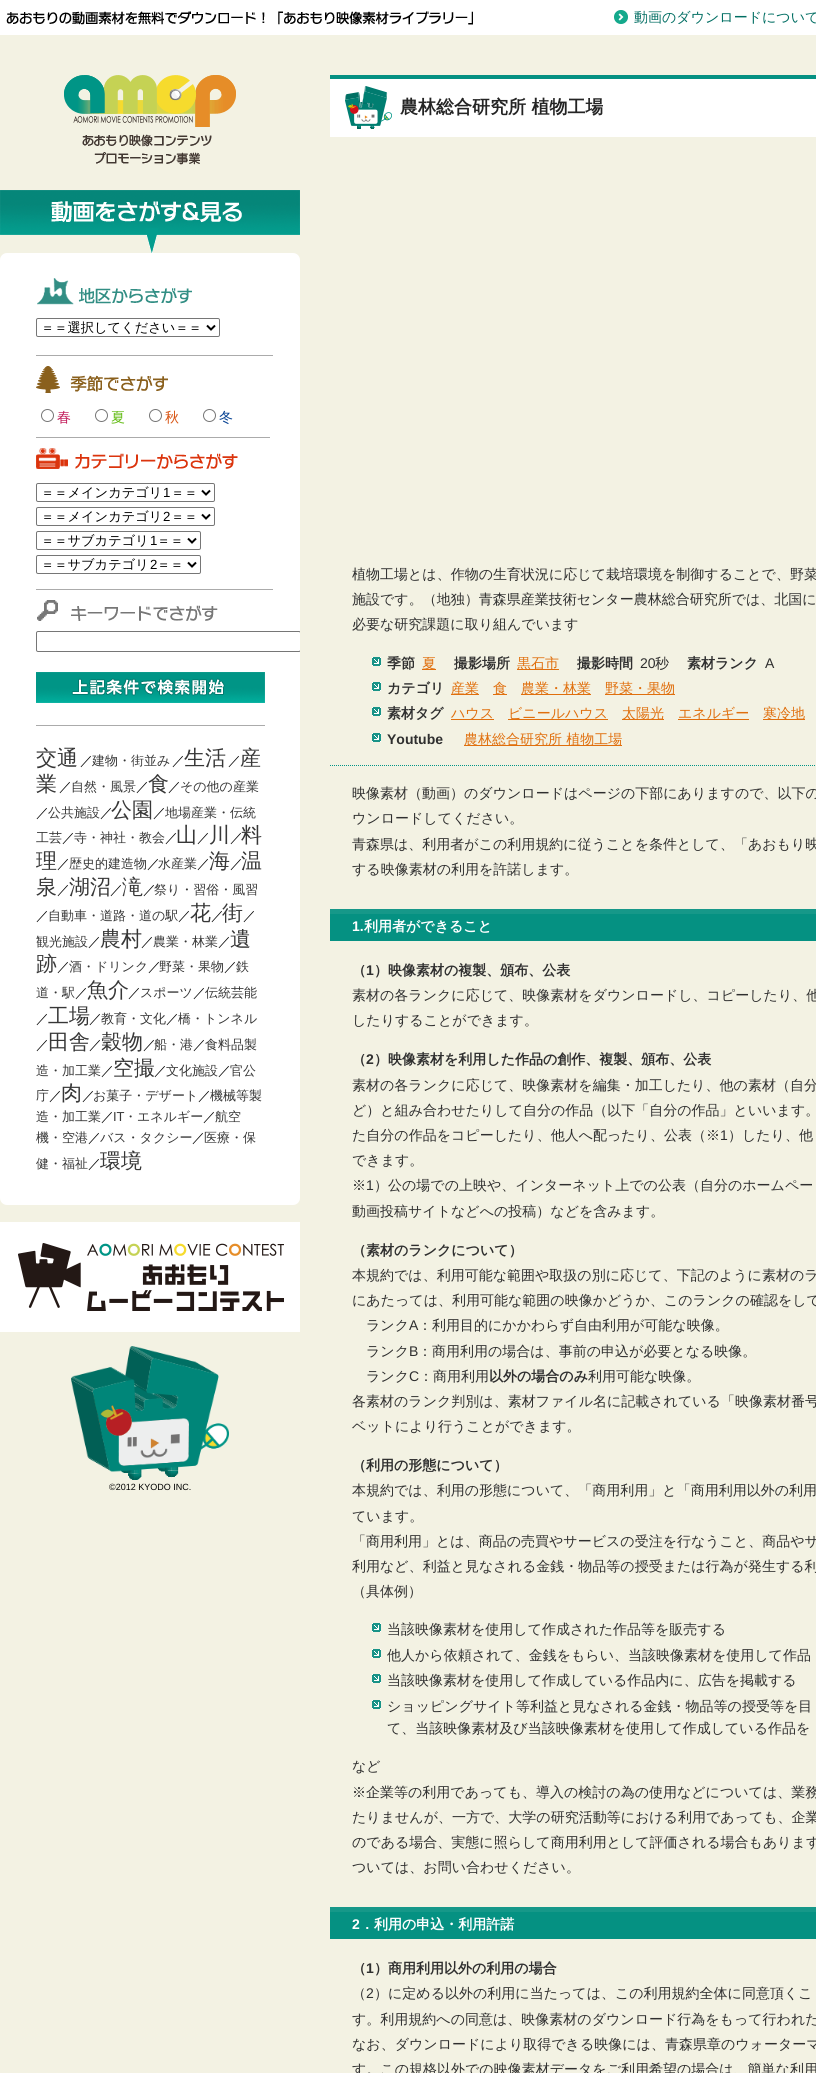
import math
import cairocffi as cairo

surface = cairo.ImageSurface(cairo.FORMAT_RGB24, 816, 2073)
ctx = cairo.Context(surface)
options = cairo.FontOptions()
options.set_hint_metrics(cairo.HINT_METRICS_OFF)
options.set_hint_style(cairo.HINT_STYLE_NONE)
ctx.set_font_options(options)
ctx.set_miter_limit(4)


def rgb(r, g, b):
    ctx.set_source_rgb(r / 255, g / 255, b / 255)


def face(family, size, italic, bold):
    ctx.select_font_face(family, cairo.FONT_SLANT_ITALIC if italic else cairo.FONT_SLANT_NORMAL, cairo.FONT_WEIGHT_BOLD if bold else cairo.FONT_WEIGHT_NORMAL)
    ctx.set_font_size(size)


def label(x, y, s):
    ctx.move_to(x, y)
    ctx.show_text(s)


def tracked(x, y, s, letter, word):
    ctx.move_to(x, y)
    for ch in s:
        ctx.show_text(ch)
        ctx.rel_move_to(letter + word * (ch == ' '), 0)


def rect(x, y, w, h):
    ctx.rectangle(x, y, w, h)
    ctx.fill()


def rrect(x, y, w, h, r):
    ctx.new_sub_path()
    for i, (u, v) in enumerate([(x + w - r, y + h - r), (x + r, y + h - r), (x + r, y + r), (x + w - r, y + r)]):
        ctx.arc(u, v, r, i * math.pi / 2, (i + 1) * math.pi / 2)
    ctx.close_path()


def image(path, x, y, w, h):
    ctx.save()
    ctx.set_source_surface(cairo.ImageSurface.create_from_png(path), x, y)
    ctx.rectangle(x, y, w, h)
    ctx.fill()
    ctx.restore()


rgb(243, 242, 227)
ctx.paint()
rgb(255, 255, 255)
rect(0, 0, 816, 35)
image('image0.png', 6, 11, 467, 14)
image('image1.png', 614, 10, 14, 14)
face('WenQuanYi Zen Hei Medium', 14, 0, 0)
rgb(1, 110, 99)
label(634, 22, '動画のダウンロードについて')
image('image2.png', 64, 75, 172, 90)
image('image3.png', 0, 190, 300, 63)
rgb(255, 255, 255)
rrect(0, 253, 300, 952, 7)
ctx.fill()
image('image4.png', 37, 278, 155, 27)
rrect(36.5, 318.5, 183, 18, 1.5)
rgb(118, 118, 118)
ctx.set_line_width(1)
ctx.stroke()
ctx.new_path()
ctx.move_to(207, 325.5)
ctx.line_to(211, 329.5)
ctx.line_to(215, 325.5)
rgb(0, 0, 0)
ctx.set_line_width(2)
ctx.stroke()
face('WenQuanYi Zen Hei Medium', 13.25, 0, 0)
label(41, 332, '＝＝選択してください＝＝')
image('image5.png', 36, 366, 132, 27)
rgb(171, 171, 171)
rect(36, 355, 237, 1)
ctx.arc(47.5, 415.5, 6, 0, 2 * math.pi)
rgb(118, 118, 118)
ctx.set_line_width(1)
ctx.stroke()
face('WenQuanYi Zen Hei Medium', 14, 0, 0)
rgb(194, 27, 90)
label(57, 422, '春')
ctx.new_path()
ctx.arc(101.5, 415.5, 6, 0, 2 * math.pi)
rgb(118, 118, 118)
ctx.stroke()
rgb(101, 188, 24)
label(111, 422, '夏')
ctx.new_path()
ctx.arc(155.5, 415.5, 6, 0, 2 * math.pi)
rgb(118, 118, 118)
ctx.stroke()
rgb(216, 84, 19)
label(165, 422, '秋')
ctx.new_path()
ctx.arc(209.5, 415.5, 6, 0, 2 * math.pi)
rgb(118, 118, 118)
ctx.stroke()
rgb(8, 67, 148)
label(219, 422, '冬')
image('image6.png', 36, 448, 202, 21)
rgb(171, 171, 171)
rect(36, 437, 234, 1)
rrect(36.5, 483.5, 178, 18, 1.5)
rgb(118, 118, 118)
ctx.stroke()
ctx.new_path()
ctx.move_to(202, 490.5)
ctx.line_to(206, 494.5)
ctx.line_to(210, 490.5)
rgb(0, 0, 0)
ctx.set_line_width(2)
ctx.stroke()
face('WenQuanYi Zen Hei Medium', 13.25, 0, 0)
label(41, 497, '＝＝メインカテゴリ')
face('Liberation Sans', 13.25, 0, 0)
label(163, 497, '1')
face('WenQuanYi Zen Hei Medium', 13.25, 0, 0)
label(171, 497, '＝＝')
rrect(36.5, 507.5, 178, 18, 1.5)
rgb(118, 118, 118)
ctx.set_line_width(1)
ctx.stroke()
ctx.new_path()
ctx.move_to(202, 514.5)
ctx.line_to(206, 518.5)
ctx.line_to(210, 514.5)
rgb(0, 0, 0)
ctx.set_line_width(2)
ctx.stroke()
label(41, 521, '＝＝メインカテゴリ')
face('Liberation Sans', 13.25, 0, 0)
label(163, 521, '2')
face('WenQuanYi Zen Hei Medium', 13.25, 0, 0)
label(171, 521, '＝＝')
rrect(36.5, 531.5, 164, 18, 1.5)
rgb(118, 118, 118)
ctx.set_line_width(1)
ctx.stroke()
ctx.new_path()
ctx.move_to(188, 538.5)
ctx.line_to(192, 542.5)
ctx.line_to(196, 538.5)
rgb(0, 0, 0)
ctx.set_line_width(2)
ctx.stroke()
label(41, 545, '＝＝サブカテゴリ')
face('Liberation Sans', 13.25, 0, 0)
label(150, 545, '1')
face('WenQuanYi Zen Hei Medium', 13.25, 0, 0)
label(157, 545, '＝＝')
rrect(36.5, 555.5, 164, 18, 1.5)
rgb(118, 118, 118)
ctx.set_line_width(1)
ctx.stroke()
ctx.new_path()
ctx.move_to(188, 562.5)
ctx.line_to(192, 566.5)
ctx.line_to(196, 562.5)
rgb(0, 0, 0)
ctx.set_line_width(2)
ctx.stroke()
label(41, 569, '＝＝サブカテゴリ')
face('Liberation Sans', 13.25, 0, 0)
label(150, 569, '2')
face('WenQuanYi Zen Hei Medium', 13.25, 0, 0)
label(157, 569, '＝＝')
image('image7.png', 37, 600, 181, 21)
rgb(171, 171, 171)
rect(36, 589, 237, 1)
ctx.save()
ctx.rectangle(0, 75, 300, 1417)
ctx.clip()
rrect(36.5, 631.5, 264, 20, 1.5)
rgb(118, 118, 118)
ctx.set_line_width(1)
ctx.stroke()
ctx.restore()
image('image8.png', 36, 672, 229, 31)
rect(36, 725, 229, 1)
face('WenQuanYi Zen Hei Medium', 21, 0, 0)
rgb(55, 55, 55)
label(36, 765, '交通')
face('WenQuanYi Zen Hei Medium', 13, 0, 0)
rgb(0, 0, 0)
tracked(80, 765, '／', -1, 0)
rgb(55, 55, 55)
label(92, 765, '建物・街並み')
rgb(0, 0, 0)
tracked(172, 765, '／', -1, 0)
face('WenQuanYi Zen Hei Medium', 21, 0, 0)
rgb(55, 55, 55)
label(184, 765, '生活')
face('WenQuanYi Zen Hei Medium', 13, 0, 0)
rgb(0, 0, 0)
tracked(228, 765, '／', -1, 0)
face('WenQuanYi Zen Hei Medium', 21, 0, 0)
rgb(55, 55, 55)
label(240, 765, '産')
label(36, 791, '業')
face('WenQuanYi Zen Hei Medium', 13, 0, 0)
rgb(0, 0, 0)
tracked(59, 791, '／', -1, 0)
rgb(55, 55, 55)
label(71, 791, '自然・風景')
rgb(0, 0, 0)
tracked(136, 791, '／', -1, 0)
face('WenQuanYi Zen Hei Medium', 21, 0, 0)
rgb(55, 55, 55)
label(148, 791, '食')
face('WenQuanYi Zen Hei Medium', 13, 0, 0)
rgb(0, 0, 0)
tracked(168, 791, '／', -1, 0)
rgb(55, 55, 55)
label(180, 791, 'その他の産業')
rgb(0, 0, 0)
tracked(36, 817, '／', -1, 0)
rgb(55, 55, 55)
label(48, 817, '公共施設')
rgb(0, 0, 0)
tracked(100, 817, '／', -1, 0)
face('WenQuanYi Zen Hei Medium', 21, 0, 0)
rgb(55, 55, 55)
label(111, 817, '公園')
face('WenQuanYi Zen Hei Medium', 13, 0, 0)
rgb(0, 0, 0)
tracked(153, 817, '／', -1, 0)
rgb(55, 55, 55)
label(165, 817, '地場産業・伝統')
label(36, 842, '工芸')
rgb(0, 0, 0)
tracked(62, 842, '／', -1, 0)
rgb(55, 55, 55)
label(74, 842, '寺・神社・教会')
rgb(0, 0, 0)
tracked(165, 842, '／', -1, 0)
face('WenQuanYi Zen Hei Medium', 21, 0, 0)
rgb(55, 55, 55)
label(176, 842, '山')
face('WenQuanYi Zen Hei Medium', 13, 0, 0)
rgb(0, 0, 0)
tracked(197, 842, '／', -1, 0)
face('WenQuanYi Zen Hei Medium', 21, 0, 0)
rgb(55, 55, 55)
label(209, 842, '川')
face('WenQuanYi Zen Hei Medium', 13, 0, 0)
rgb(0, 0, 0)
tracked(230, 842, '／', -1, 0)
face('WenQuanYi Zen Hei Medium', 21, 0, 0)
rgb(55, 55, 55)
label(241, 842, '料')
label(36, 868, '理')
face('WenQuanYi Zen Hei Medium', 13, 0, 0)
rgb(0, 0, 0)
tracked(57, 868, '／', -1, 0)
rgb(55, 55, 55)
label(69, 868, '歴史的建造物')
rgb(0, 0, 0)
tracked(147, 868, '／', -1, 0)
rgb(55, 55, 55)
label(158, 868, '水産業')
rgb(0, 0, 0)
tracked(197, 868, '／', -1, 0)
face('WenQuanYi Zen Hei Medium', 21, 0, 0)
rgb(55, 55, 55)
label(209, 868, '海')
face('WenQuanYi Zen Hei Medium', 13, 0, 0)
rgb(0, 0, 0)
tracked(230, 868, '／', -1, 0)
face('WenQuanYi Zen Hei Medium', 21, 0, 0)
rgb(55, 55, 55)
label(241, 868, '温')
label(36, 894, '泉')
face('WenQuanYi Zen Hei Medium', 13, 0, 0)
rgb(0, 0, 0)
tracked(57, 894, '／', -1, 0)
face('WenQuanYi Zen Hei Medium', 21, 0, 0)
rgb(55, 55, 55)
label(69, 894, '湖沼')
face('WenQuanYi Zen Hei Medium', 13, 0, 0)
rgb(0, 0, 0)
tracked(110, 894, '／', -1, 0)
face('WenQuanYi Zen Hei Medium', 21, 0, 0)
rgb(55, 55, 55)
label(122, 894, '滝')
face('WenQuanYi Zen Hei Medium', 13, 0, 0)
rgb(0, 0, 0)
tracked(143, 894, '／', -1, 0)
rgb(55, 55, 55)
label(154, 894, '祭り・習俗・風習')
rgb(0, 0, 0)
tracked(36, 920, '／', -1, 0)
rgb(55, 55, 55)
label(48, 920, '自動車・道路・道の駅')
rgb(0, 0, 0)
tracked(178, 920, '／', -1, 0)
face('WenQuanYi Zen Hei Medium', 21, 0, 0)
rgb(55, 55, 55)
label(190, 920, '花')
face('WenQuanYi Zen Hei Medium', 13, 0, 0)
rgb(0, 0, 0)
tracked(211, 920, '／', -1, 0)
face('WenQuanYi Zen Hei Medium', 21, 0, 0)
rgb(55, 55, 55)
label(222, 920, '街')
face('WenQuanYi Zen Hei Medium', 13, 0, 0)
rgb(0, 0, 0)
tracked(243, 920, '／', -1, 0)
rgb(55, 55, 55)
label(36, 946, '観光施設')
rgb(0, 0, 0)
tracked(88, 946, '／', -1, 0)
face('WenQuanYi Zen Hei Medium', 21, 0, 0)
rgb(55, 55, 55)
label(100, 946, '農村')
face('WenQuanYi Zen Hei Medium', 13, 0, 0)
rgb(0, 0, 0)
tracked(141, 946, '／', -1, 0)
rgb(55, 55, 55)
label(153, 946, '農業・林業')
rgb(0, 0, 0)
tracked(218, 946, '／', -1, 0)
face('WenQuanYi Zen Hei Medium', 21, 0, 0)
rgb(55, 55, 55)
label(230, 946, '遺')
label(36, 971, '跡')
face('WenQuanYi Zen Hei Medium', 13, 0, 0)
rgb(0, 0, 0)
tracked(57, 971, '／', -1, 0)
rgb(55, 55, 55)
label(69, 971, '酒・ドリンク')
rgb(0, 0, 0)
tracked(148, 971, '／', -1, 0)
rgb(55, 55, 55)
label(159, 971, '野菜・果物')
rgb(0, 0, 0)
tracked(224, 971, '／', -1, 0)
rgb(55, 55, 55)
label(236, 971, '鉄')
label(36, 997, '道・駅')
rgb(0, 0, 0)
tracked(75, 997, '／', -1, 0)
face('WenQuanYi Zen Hei Medium', 21, 0, 0)
rgb(55, 55, 55)
label(87, 997, '魚介')
face('WenQuanYi Zen Hei Medium', 13, 0, 0)
rgb(0, 0, 0)
tracked(128, 997, '／', -1, 0)
rgb(55, 55, 55)
label(140, 997, 'スポーツ')
rgb(0, 0, 0)
tracked(193, 997, '／', -1, 0)
rgb(55, 55, 55)
label(205, 997, '伝統芸能')
rgb(0, 0, 0)
tracked(36, 1023, '／', -1, 0)
face('WenQuanYi Zen Hei Medium', 21, 0, 0)
rgb(55, 55, 55)
label(48, 1023, '工場')
face('WenQuanYi Zen Hei Medium', 13, 0, 0)
rgb(0, 0, 0)
tracked(89, 1023, '／', -1, 0)
rgb(55, 55, 55)
label(101, 1023, '教育・文化')
rgb(0, 0, 0)
tracked(166, 1023, '／', -1, 0)
rgb(55, 55, 55)
label(178, 1023, '橋・トンネル')
rgb(0, 0, 0)
tracked(36, 1049, '／', -1, 0)
face('WenQuanYi Zen Hei Medium', 21, 0, 0)
rgb(55, 55, 55)
label(48, 1049, '田舎')
face('WenQuanYi Zen Hei Medium', 13, 0, 0)
rgb(0, 0, 0)
tracked(89, 1049, '／', -1, 0)
face('WenQuanYi Zen Hei Medium', 21, 0, 0)
rgb(55, 55, 55)
label(101, 1049, '穀物')
face('WenQuanYi Zen Hei Medium', 13, 0, 0)
rgb(0, 0, 0)
tracked(143, 1049, '／', -1, 0)
rgb(55, 55, 55)
label(154, 1049, '船・港')
rgb(0, 0, 0)
tracked(193, 1049, '／', -1, 0)
rgb(55, 55, 55)
label(205, 1049, '食料品製')
label(36, 1075, '造・加工業')
rgb(0, 0, 0)
tracked(101, 1075, '／', -1, 0)
face('WenQuanYi Zen Hei Medium', 21, 0, 0)
rgb(55, 55, 55)
label(113, 1075, '空撮')
face('WenQuanYi Zen Hei Medium', 13, 0, 0)
rgb(0, 0, 0)
tracked(154, 1075, '／', -1, 0)
rgb(55, 55, 55)
label(166, 1075, '文化施設')
rgb(0, 0, 0)
tracked(218, 1075, '／', -1, 0)
rgb(55, 55, 55)
label(230, 1075, '官公')
label(36, 1100, '庁')
rgb(0, 0, 0)
tracked(49, 1100, '／', -1, 0)
face('WenQuanYi Zen Hei Medium', 21, 0, 0)
rgb(55, 55, 55)
label(61, 1100, '肉')
face('WenQuanYi Zen Hei Medium', 13, 0, 0)
rgb(0, 0, 0)
tracked(82, 1100, '／', -1, 0)
rgb(55, 55, 55)
label(93, 1100, 'お菓子・デザート')
rgb(0, 0, 0)
tracked(198, 1100, '／', -1, 0)
rgb(55, 55, 55)
label(210, 1100, '機械等製')
label(36, 1121, '造・加工業')
rgb(0, 0, 0)
tracked(101, 1121, '／', -1, 0)
face('Liberation Sans', 13, 0, 0)
rgb(55, 55, 55)
label(113, 1121, 'IT')
face('WenQuanYi Zen Hei Medium', 13, 0, 0)
label(124, 1121, '・エネルギー')
rgb(0, 0, 0)
tracked(203, 1121, '／', -1, 0)
rgb(55, 55, 55)
label(215, 1121, '航空')
label(36, 1142, '機・空港')
rgb(0, 0, 0)
tracked(88, 1142, '／', -1, 0)
rgb(55, 55, 55)
label(100, 1142, 'バス・タクシー')
rgb(0, 0, 0)
tracked(192, 1142, '／', -1, 0)
rgb(55, 55, 55)
label(204, 1142, '医療・保')
label(36, 1168, '健・福祉')
rgb(0, 0, 0)
tracked(88, 1168, '／', -1, 0)
face('WenQuanYi Zen Hei Medium', 21, 0, 0)
rgb(55, 55, 55)
label(100, 1168, '環境')
image('image9.png', 0, 1222, 300, 110)
image('image10.png', 71, 1346, 158, 134)
face('Liberation Sans', 9, 0, 0)
rgb(0, 0, 0)
label(109, 1490, '©2012 KYODO INC.')
rgb(255, 255, 255)
rect(330, 79, 486, 58)
image('image11.png', 345, 86, 47, 43)
rgb(5, 145, 130)
rect(330, 75, 486, 4)
face('WenQuanYi Zen Hei', 18, 0, 1)
rgb(36, 36, 36)
label(400, 113, '農林総合研究所 植物工場')
ctx.new_path()
ctx.move_to(330, 765.5)
ctx.line_to(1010, 765.5)
rgb(0, 149, 134)
ctx.set_line_width(1)
ctx.set_dash([1, 1])
ctx.stroke()
face('WenQuanYi Zen Hei Medium', 14, 0, 0)
rgb(47, 47, 47)
label(352, 579, '植物工場とは、作物の生育状況に応じて栽培環境を制御することで、野菜')
label(352, 604, '施設です。（地独）青森県産業技術センター農林総合研究所では、北国に')
label(352, 629, '必要な研究課題に取り組んでいます')
image('image12.png', 372, 657, 9, 9)
face('WenQuanYi Zen Hei', 14, 0, 1)
label(387, 668, '季節')
rgb(224, 111, 13)
rect(422, 669, 14, 1)
face('WenQuanYi Zen Hei Medium', 14, 0, 0)
label(422, 668, '夏')
face('WenQuanYi Zen Hei', 14, 0, 1)
rgb(47, 47, 47)
label(454, 668, '撮影場所')
rgb(224, 111, 13)
rect(517, 669, 42, 1)
face('WenQuanYi Zen Hei Medium', 14, 0, 0)
label(517, 668, '黒石市')
face('WenQuanYi Zen Hei', 14, 0, 1)
rgb(47, 47, 47)
label(577, 668, '撮影時間')
face('Liberation Sans', 14, 0, 0)
label(640, 668, '20')
face('WenQuanYi Zen Hei Medium', 14, 0, 0)
label(655, 668, '秒')
face('WenQuanYi Zen Hei', 14, 0, 1)
label(687, 668, '素材ランク')
face('Liberation Sans', 14, 0, 0)
label(765, 668, 'A')
image('image12.png', 372, 682, 9, 9)
face('WenQuanYi Zen Hei', 14, 0, 1)
label(387, 693, 'カテゴリ')
rgb(224, 111, 13)
rect(451, 694, 28, 1)
face('WenQuanYi Zen Hei Medium', 14, 0, 0)
label(451, 693, '産業')
rect(493, 694, 14, 1)
label(493, 693, '食')
rect(521, 694, 70, 1)
label(521, 693, '農業・林業')
rect(605, 694, 70, 1)
label(605, 693, '野菜・果物')
image('image12.png', 372, 707, 9, 9)
face('WenQuanYi Zen Hei', 14, 0, 1)
rgb(47, 47, 47)
label(387, 718, '素材タグ')
rgb(224, 111, 13)
rect(451, 719, 43, 1)
face('WenQuanYi Zen Hei Medium', 14, 0, 0)
label(451, 718, 'ハウス')
rect(508, 719, 100, 1)
label(508, 718, 'ビニールハウス')
rect(622, 719, 42, 1)
label(622, 718, '太陽光')
rect(678, 719, 71, 1)
label(678, 718, 'エネルギー')
rect(763, 719, 42, 1)
label(763, 718, '寒冷地')
image('image12.png', 372, 733, 9, 9)
face('Liberation Sans', 14, 0, 1)
rgb(47, 47, 47)
label(387, 744, 'Youtube')
rgb(224, 111, 13)
rect(464, 745, 158, 1)
face('WenQuanYi Zen Hei Medium', 14, 0, 0)
label(464, 744, '農林総合研究所 植物工場')
rgb(47, 47, 47)
label(352, 798, '映像素材（動画）のダウンロードはページの下部にありますので、以下の')
label(352, 823, 'ウンロードしてください。')
label(352, 849, '青森県は、利用者がこの利用規約に従うことを条件として、「あおもり映')
label(352, 874, 'する映像素材の利用を許諾します。')
rgb(5, 145, 130)
rect(330, 914, 486, 27)
rgb(22, 152, 137)
rect(330, 909, 486, 5)
face('Liberation Sans', 14, 0, 1)
rgb(255, 255, 255)
label(352, 931, '1.')
face('WenQuanYi Zen Hei', 14, 0, 1)
label(364, 931, '利用者ができること')
rgb(47, 47, 47)
label(352, 975, '（')
face('Liberation Sans', 14, 0, 1)
label(366, 975, '1')
face('WenQuanYi Zen Hei', 14, 0, 1)
label(374, 975, '）映像素材の複製、頒布、公表')
face('WenQuanYi Zen Hei Medium', 14, 0, 0)
label(352, 1000, '素材の各ランクに応じて、映像素材をダウンロードし、コピーしたり、他')
label(352, 1025, 'したりすることができます。')
face('WenQuanYi Zen Hei', 14, 0, 1)
label(352, 1064, '（')
face('Liberation Sans', 14, 0, 1)
label(366, 1064, '2')
face('WenQuanYi Zen Hei', 14, 0, 1)
label(374, 1064, '）映像素材を利用した作品の創作、複製、頒布、公表')
face('WenQuanYi Zen Hei Medium', 14, 0, 0)
label(352, 1090, '素材の各ランクに応じて、映像素材を編集・加工したり、他の素材（自分')
label(352, 1115, 'ど）と組み合わせたりして自分の作品（以下「自分の作品」といいます。')
label(352, 1140, 'た自分の作品をコピーしたり、他人へ配ったり、公表（※')
face('Liberation Sans', 14, 0, 0)
label(720, 1140, '1')
face('WenQuanYi Zen Hei Medium', 14, 0, 0)
label(728, 1140, '）したり、他')
label(352, 1165, 'できます。')
label(352, 1190, '※')
face('Liberation Sans', 14, 0, 0)
label(366, 1190, '1')
face('WenQuanYi Zen Hei Medium', 14, 0, 0)
label(374, 1190, '）公の場での上映や、インターネット上での公表（自分のホームペー')
label(352, 1216, '動画投稿サイトなどへの投稿）などを含みます。')
face('WenQuanYi Zen Hei', 14, 0, 1)
label(352, 1255, '（素材のランクについて）')
face('WenQuanYi Zen Hei Medium', 14, 0, 0)
label(352, 1280, '本規約では、利用可能な範囲や取扱の別に応じて、下記のように素材のラ')
label(352, 1305, 'にあたっては、利用可能な範囲の映像かどうか、このランクの確認をして')
label(366, 1330, 'ランク')
face('Liberation Sans', 14, 0, 0)
label(409, 1330, 'A')
face('WenQuanYi Zen Hei Medium', 14, 0, 0)
label(418, 1330, '：利用目的にかかわらず自由利用が可能な映像。')
label(366, 1356, 'ランク')
face('Liberation Sans', 14, 0, 0)
label(409, 1356, 'B')
face('WenQuanYi Zen Hei Medium', 14, 0, 0)
label(418, 1356, '：商用利用の場合は、事前の申込が必要となる映像。')
label(366, 1381, 'ランク')
face('Liberation Sans', 14, 0, 0)
label(409, 1381, 'C')
face('WenQuanYi Zen Hei Medium', 14, 0, 0)
label(419, 1381, '：商用利用')
face('WenQuanYi Zen Hei', 14, 0, 1)
label(489, 1381, '以外の場合のみ')
face('WenQuanYi Zen Hei Medium', 14, 0, 0)
label(588, 1381, '利用可能な映像。')
label(352, 1406, '各素材のランク判別は、素材ファイル名に記載されている「映像素材番号')
label(352, 1431, 'ベットにより行うことができます。')
face('WenQuanYi Zen Hei', 14, 0, 1)
label(352, 1470, '（利用の形態について）')
face('WenQuanYi Zen Hei Medium', 14, 0, 0)
label(352, 1495, '本規約では、利用の形態について、「商用利用」と「商用利用以外の利用')
label(352, 1521, 'ています。')
label(352, 1546, '「商用利用」とは、商品の売買やサービスの受注を行なうこと、商品やサ')
label(352, 1571, '利用など、利益と見なされる金銭・物品等の授受または行為が発生する利')
label(352, 1596, '（具体例）')
image('image12.png', 372, 1623, 9, 9)
label(387, 1634, '当該映像素材を使用して作成された作品等を販売する')
image('image12.png', 372, 1649, 9, 9)
label(387, 1660, '他人から依頼されて、金銭をもらい、当該映像素材を使用して作品')
image('image12.png', 372, 1674, 9, 9)
label(387, 1685, '当該映像素材を使用して作成している作品内に、広告を掲載する')
image('image12.png', 372, 1700, 9, 9)
label(387, 1711, 'ショッピングサイト等利益と見なされる金銭・物品等の授受等を目')
label(387, 1733, 'て、当該映像素材及び当該映像素材を使用して作成している作品を')
label(352, 1771, 'など')
label(352, 1797, '※企業等の利用であっても、導入の検討の為の使用などについては、業務')
label(352, 1822, 'たりませんが、一方で、大学の研究活動等における利用であっても、企業')
label(352, 1847, 'のである場合、実態に照らして商用利用として評価される場合もあります')
label(352, 1872, 'ついては、お問い合わせください。')
rgb(5, 145, 130)
rect(330, 1912, 486, 27)
rgb(22, 152, 137)
rect(330, 1907, 486, 5)
face('Liberation Sans', 14, 0, 1)
rgb(255, 255, 255)
label(352, 1929, '2')
face('WenQuanYi Zen Hei', 14, 0, 1)
label(360, 1929, '．利用の申込・利用許諾')
rgb(47, 47, 47)
label(352, 1973, '（')
face('Liberation Sans', 14, 0, 1)
label(366, 1973, '1')
face('WenQuanYi Zen Hei', 14, 0, 1)
label(374, 1973, '）商用利用以外の利用の場合')
face('WenQuanYi Zen Hei Medium', 14, 0, 0)
label(352, 1998, '（')
face('Liberation Sans', 14, 0, 0)
label(366, 1998, '2')
face('WenQuanYi Zen Hei Medium', 14, 0, 0)
label(374, 1998, '）に定める以外の利用に当たっては、この利用規約全体に同意頂くこ')
label(352, 2024, 'す。利用規約への同意は、映像素材のダウンロード行為をもって行われた')
label(352, 2049, 'なお、ダウンロードにより取得できる映像には、青森県章のウォーターマ')
label(352, 2074, 'す。この規格以外での映像素材データをご利用希望の場合は、簡単な利用')
surface.write_to_png('render.png')
